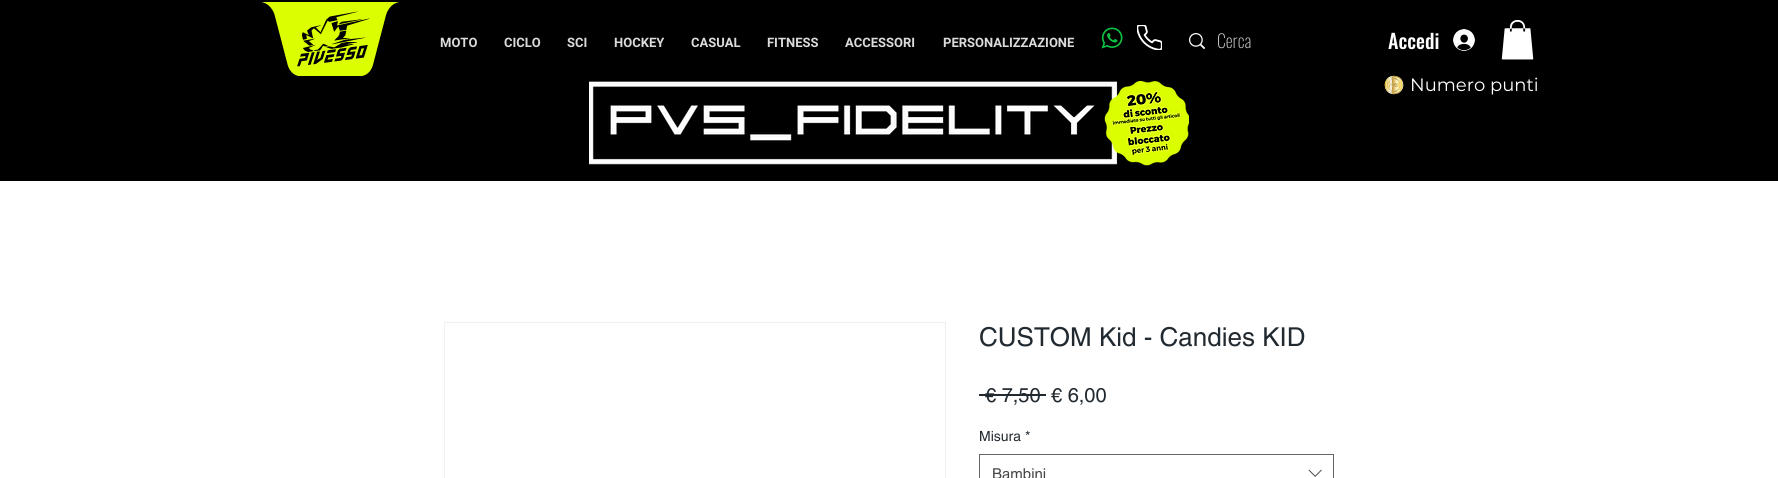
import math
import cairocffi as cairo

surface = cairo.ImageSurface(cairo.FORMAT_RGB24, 1778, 478)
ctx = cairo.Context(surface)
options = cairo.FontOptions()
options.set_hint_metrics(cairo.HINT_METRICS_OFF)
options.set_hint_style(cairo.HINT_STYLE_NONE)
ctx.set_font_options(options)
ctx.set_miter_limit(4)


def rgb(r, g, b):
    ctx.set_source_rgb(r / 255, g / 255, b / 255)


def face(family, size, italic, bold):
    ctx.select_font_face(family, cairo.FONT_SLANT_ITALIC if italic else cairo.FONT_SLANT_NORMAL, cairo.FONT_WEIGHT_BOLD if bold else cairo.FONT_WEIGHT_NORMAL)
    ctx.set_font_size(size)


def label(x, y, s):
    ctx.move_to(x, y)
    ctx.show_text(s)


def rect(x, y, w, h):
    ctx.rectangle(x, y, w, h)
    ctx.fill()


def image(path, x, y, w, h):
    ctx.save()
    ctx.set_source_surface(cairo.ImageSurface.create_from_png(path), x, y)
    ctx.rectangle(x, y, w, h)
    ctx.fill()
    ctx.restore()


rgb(255, 255, 255)
ctx.paint()
rgb(0, 0, 0)
rect(0, 0, 1778, 181)
image('image0.png', 262, 2, 137, 74)
face('Roboto', 13, 0, 1)
rgb(219, 219, 219)
label(440, 47, 'MOTO')
label(504, 47, 'CICLO')
label(567, 47, 'SCI')
label(614, 47, 'HOCKEY')
label(691, 47, 'CASUAL')
label(767, 47, 'FITNESS')
label(845, 47, 'ACCESSORI')
label(943, 47, 'PERSONALIZZAZIONE')
image('image1.png', 1101, 27, 22, 22)
image('image2.png', 1137, 25, 25, 25)
image('image3.png', 1189, 33, 16, 16)
face('Oswald ExtraLight', 18, 0, 0)
rgb(199, 199, 199)
label(1217, 48, 'Cerca')
face('Oswald Medium', 20, 0, 0)
rgb(255, 255, 255)
label(1388, 49, 'Accedi')
image('image4.png', 1453, 29, 22, 22)
image('image5.png', 1501, 20, 33, 40)
image('image6.png', 589, 81, 600, 85)
image('image7.png', 1384, 75, 20, 20)
face('Montserrat', 18, 0, 0)
label(1410, 91, 'Numero punti')
ctx.rectangle(444.5, 322.5, 501, 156)
rgb(240, 240, 240)
ctx.set_line_width(1)
ctx.stroke()
face('helvetica', 26, 0, 0)
rgb(34, 42, 49)
label(979, 346, 'CUSTOM Kid - Candies KID')
face('helvetica', 20, 0, 0)
label(985, 402, '€ 7,50')
rect(979, 394, 67, 2)
label(1051, 402, '€ 6,00')
face('helvetica', 14, 0, 0)
label(979, 441, 'Misura *')
ctx.rectangle(979.5, 454.5, 354, 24)
rgb(102, 102, 102)
ctx.stroke()
face('helvetica', 15, 0, 0)
rgb(68, 68, 68)
label(992, 479, 'Bambini')
image('image8.png', 1308, 469, 14, 8)
surface.write_to_png('render.png')
